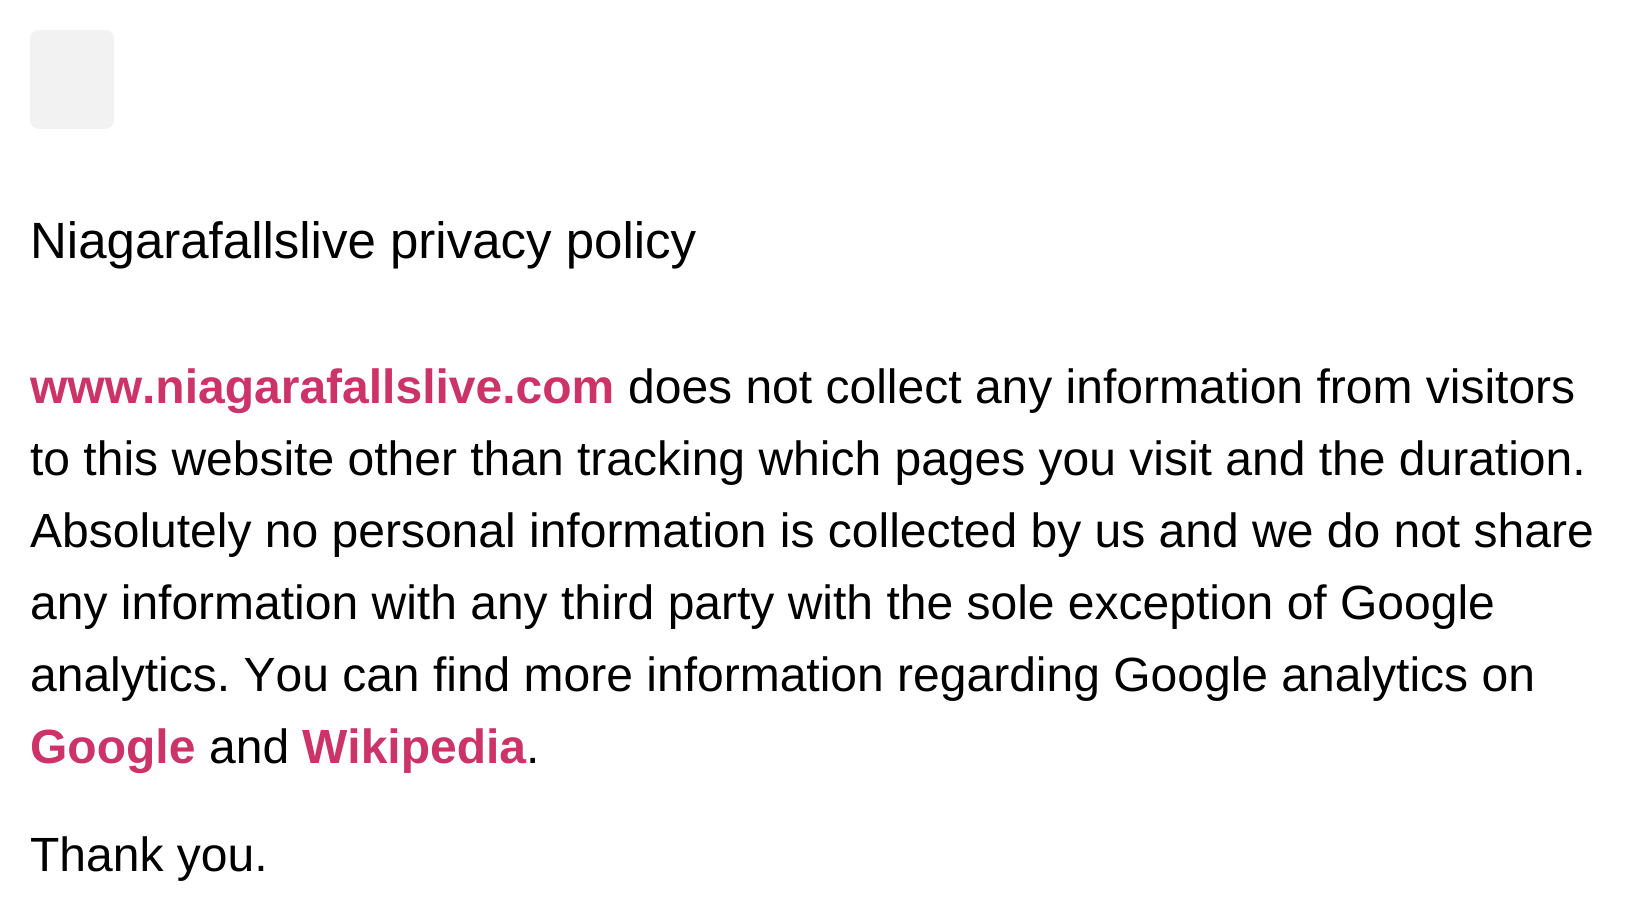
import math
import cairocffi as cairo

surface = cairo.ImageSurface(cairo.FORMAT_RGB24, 1632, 912)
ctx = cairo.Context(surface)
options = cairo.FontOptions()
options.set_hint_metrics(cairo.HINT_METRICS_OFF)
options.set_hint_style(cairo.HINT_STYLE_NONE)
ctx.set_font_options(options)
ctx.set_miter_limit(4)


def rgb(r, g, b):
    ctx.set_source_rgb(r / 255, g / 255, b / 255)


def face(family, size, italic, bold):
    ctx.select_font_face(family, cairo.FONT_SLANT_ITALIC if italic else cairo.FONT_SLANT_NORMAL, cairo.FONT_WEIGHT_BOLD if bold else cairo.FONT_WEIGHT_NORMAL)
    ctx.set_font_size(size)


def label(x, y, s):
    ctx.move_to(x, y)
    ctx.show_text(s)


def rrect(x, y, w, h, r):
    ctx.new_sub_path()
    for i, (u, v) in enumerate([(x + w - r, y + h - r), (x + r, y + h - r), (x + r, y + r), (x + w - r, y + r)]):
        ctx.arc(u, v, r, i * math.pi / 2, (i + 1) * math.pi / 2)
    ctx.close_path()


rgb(255, 255, 255)
ctx.paint()
rgb(242, 242, 242)
rrect(30, 30, 84, 99, 9)
ctx.fill()
face('Liberation Sans', 51, 0, 0)
rgb(0, 0, 0)
label(30, 258, 'Niagarafallslive privacy policy')
face('Liberation Sans', 48, 0, 1)
rgb(204, 51, 102)
label(30, 403, 'www.niagarafallslive.com')
face('Liberation Sans', 48, 0, 0)
rgb(0, 0, 0)
label(628, 403, 'does not collect any information from visitors')
label(30, 475, 'to this website other than tracking which pages you visit and the duration.')
label(30, 547, 'Absolutely no personal information is collected by us and we do not share')
label(30, 619, 'any information with any third party with the sole exception of Google')
label(30, 691, 'analytics. You can find more information regarding Google analytics on')
face('Liberation Sans', 48, 0, 1)
rgb(204, 51, 102)
label(30, 763, 'Google')
face('Liberation Sans', 48, 0, 0)
rgb(0, 0, 0)
label(209, 763, 'and')
face('Liberation Sans', 48, 0, 1)
rgb(204, 51, 102)
label(302, 763, 'Wikipedia')
face('Liberation Sans', 48, 0, 0)
rgb(0, 0, 0)
label(526, 763, '.')
label(30, 871, 'Thank you.')
surface.write_to_png('render.png')
